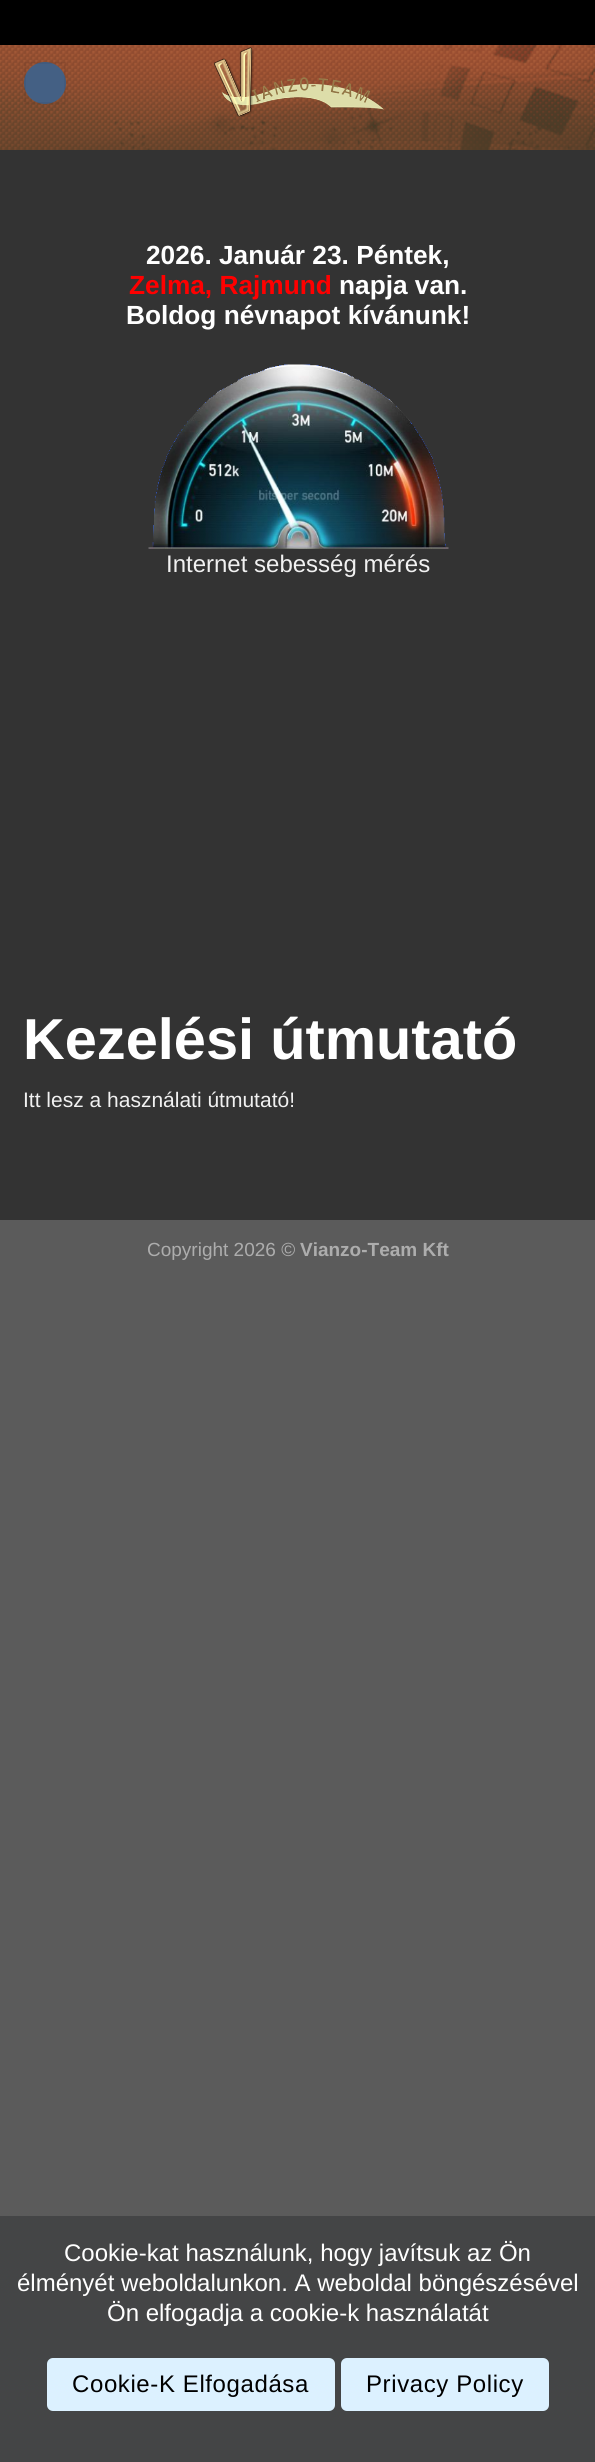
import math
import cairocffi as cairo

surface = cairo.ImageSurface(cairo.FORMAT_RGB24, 595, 2462)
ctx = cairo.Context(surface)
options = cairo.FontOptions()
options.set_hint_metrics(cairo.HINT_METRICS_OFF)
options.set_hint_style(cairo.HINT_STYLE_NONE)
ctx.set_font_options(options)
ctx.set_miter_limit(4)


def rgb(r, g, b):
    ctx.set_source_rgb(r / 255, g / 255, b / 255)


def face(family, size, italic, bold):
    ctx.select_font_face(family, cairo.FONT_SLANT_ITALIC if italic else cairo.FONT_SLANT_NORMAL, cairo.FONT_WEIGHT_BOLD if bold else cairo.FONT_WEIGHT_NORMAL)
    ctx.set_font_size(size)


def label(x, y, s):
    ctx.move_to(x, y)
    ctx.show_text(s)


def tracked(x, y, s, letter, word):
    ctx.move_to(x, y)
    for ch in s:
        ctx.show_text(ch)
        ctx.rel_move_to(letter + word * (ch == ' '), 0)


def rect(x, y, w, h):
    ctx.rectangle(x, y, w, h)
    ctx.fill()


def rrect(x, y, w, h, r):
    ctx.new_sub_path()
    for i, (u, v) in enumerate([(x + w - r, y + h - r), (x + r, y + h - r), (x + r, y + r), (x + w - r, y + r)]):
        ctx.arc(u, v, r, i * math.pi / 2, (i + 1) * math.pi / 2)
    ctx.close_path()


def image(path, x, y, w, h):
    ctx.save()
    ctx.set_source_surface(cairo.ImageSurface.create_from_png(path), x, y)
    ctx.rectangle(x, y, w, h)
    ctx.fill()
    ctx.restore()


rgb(91, 91, 91)
ctx.paint()
rgb(0, 0, 0)
rect(0, 0, 595, 45)
image('image0.png', 0, 45, 595, 105)
rgb(68, 96, 132)
ctx.arc(45, 83, 21, 0, 2 * math.pi)
ctx.fill()
ctx.rectangle(25, 63, 40, 40)
ctx.set_source_rgba(0, 0, 0, 0.05)
ctx.stroke()
image('image1.png', 213, 47, 171, 70)
rgb(51, 51, 51)
rect(0, 150, 595, 1070)
face('Liberation Sans', 26.25, 0, 1)
rgb(255, 255, 255)
label(146, 264, '2026. Január 23. Péntek,')
rgb(255, 0, 0)
label(129, 294, 'Zelma, Rajmund')
rgb(255, 255, 255)
label(339, 294, 'napja van.')
label(126, 324, 'Boldog névnapot kívánunk!')
image('image2.png', 148, 364, 301, 185)
face('Liberation Sans', 24, 0, 0)
rgb(241, 241, 241)
label(166, 572, 'Internet sebesség mérés')
face('Liberation Sans', 57.75, 0, 1)
rgb(255, 255, 255)
label(23, 1059, 'Kezelési útmutató')
face('Liberation Sans', 21, 0, 0)
rgb(241, 241, 241)
label(23, 1107, 'Itt lesz a használati útmutató!')
face('Liberation Sans', 19, 0, 0)
rgb(173, 173, 173)
label(147, 1256, 'Copyright 2026 ©')
face('Liberation Sans', 19, 0, 1)
label(300, 1256, 'Vianzo-Team Kft')
rgb(68, 69, 70)
rect(0, 2216, 595, 246)
face('Liberation Sans', 24, 0, 0)
rgb(255, 255, 255)
label(64, 2261, 'Cookie-kat használunk, hogy javítsuk az Ön')
label(17, 2291, 'élményét weboldalunkon. A weboldal böngészésével')
label(107, 2321, 'Ön elfogadja a cookie-k használatát')
rgb(220, 241, 255)
rrect(47, 2358, 288, 53, 6)
ctx.fill()
rgb(0, 0, 0)
tracked(72, 2392, 'Cookie-K Elfogadása', 0.6, 0)
rgb(220, 241, 255)
rrect(341, 2358, 208, 53, 6)
ctx.fill()
rgb(0, 0, 0)
tracked(366, 2392, 'Privacy Policy', 0.6, 0)
surface.write_to_png('render.png')
